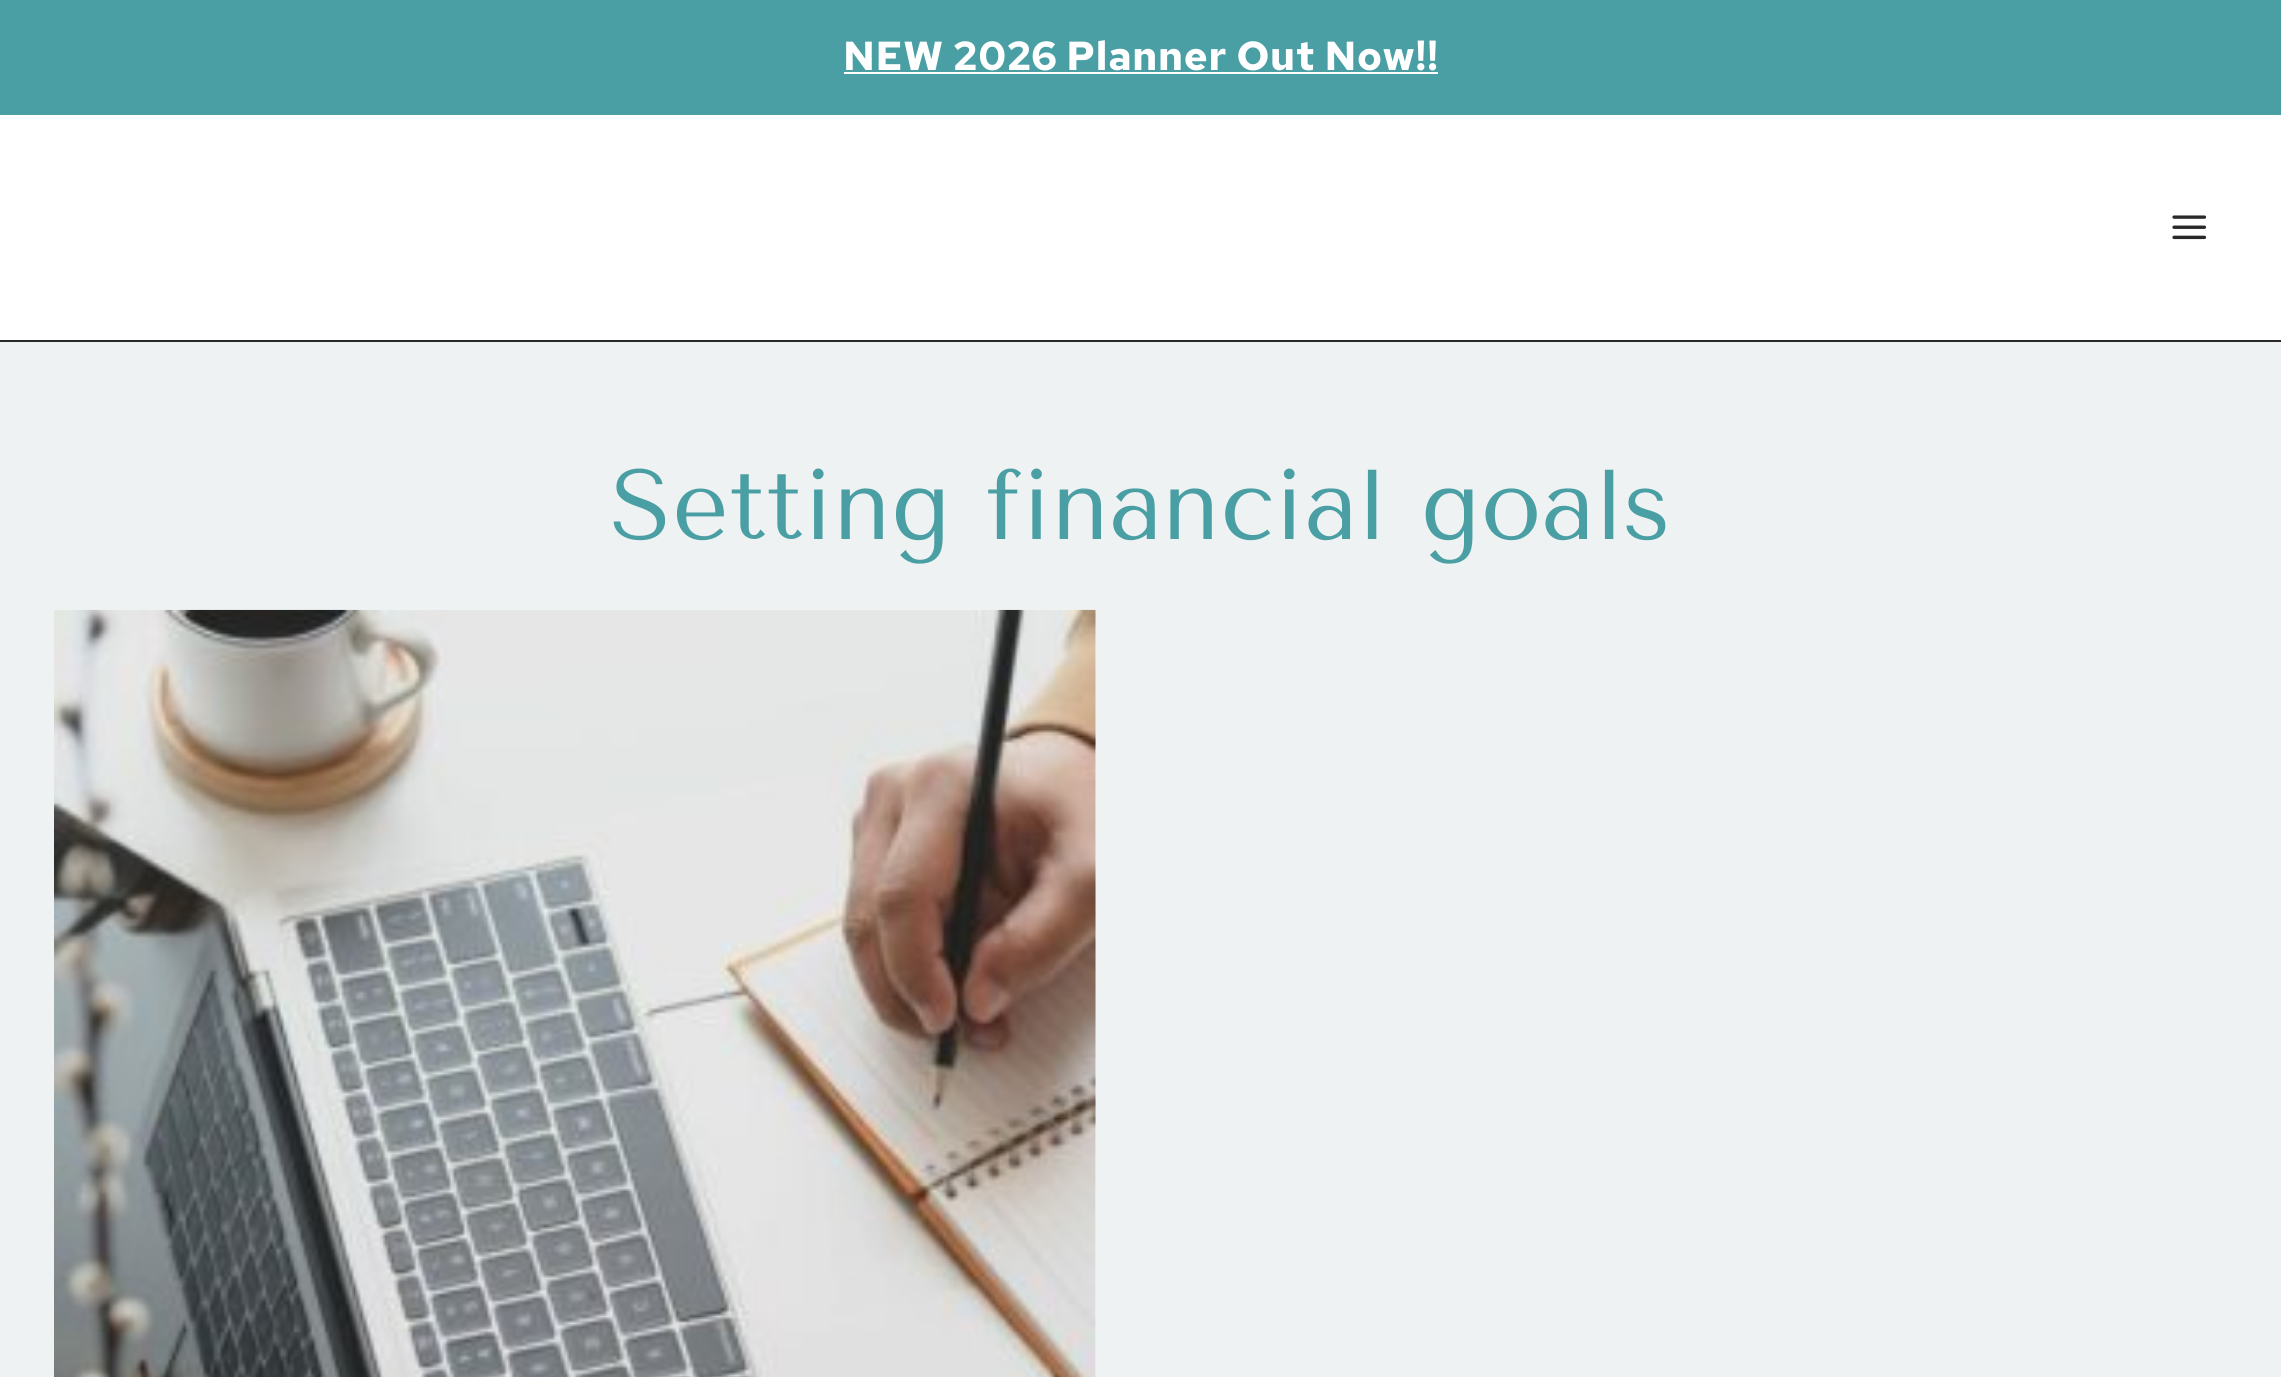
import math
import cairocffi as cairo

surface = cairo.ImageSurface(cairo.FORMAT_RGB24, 2281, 1377)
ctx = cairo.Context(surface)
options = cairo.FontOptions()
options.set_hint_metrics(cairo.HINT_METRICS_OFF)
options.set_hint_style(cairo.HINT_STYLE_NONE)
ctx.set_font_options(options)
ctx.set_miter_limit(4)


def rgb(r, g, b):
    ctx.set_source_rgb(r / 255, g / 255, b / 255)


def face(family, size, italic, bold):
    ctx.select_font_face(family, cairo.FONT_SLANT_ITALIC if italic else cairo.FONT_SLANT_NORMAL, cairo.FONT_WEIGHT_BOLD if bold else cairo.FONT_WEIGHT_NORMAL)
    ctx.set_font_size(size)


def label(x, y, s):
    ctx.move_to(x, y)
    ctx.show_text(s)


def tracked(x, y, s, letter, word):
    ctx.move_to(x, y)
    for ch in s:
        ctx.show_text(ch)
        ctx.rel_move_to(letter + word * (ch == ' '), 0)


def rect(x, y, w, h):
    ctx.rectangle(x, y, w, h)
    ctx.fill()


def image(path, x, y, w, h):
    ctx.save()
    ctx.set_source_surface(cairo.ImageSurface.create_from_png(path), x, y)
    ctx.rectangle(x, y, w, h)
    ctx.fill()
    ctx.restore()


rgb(239, 242, 242)
ctx.paint()
rgb(73, 159, 164)
rect(0, 0, 2281, 115)
face('Red Hat Text', 40.5, 0, 1)
rgb(255, 255, 255)
tracked(843, 70, 'NEW 2026 Planner Out Now!!', 0.7, 0)
rect(844, 72, 594, 2)
rect(0, 115, 2281, 225)
rgb(40, 40, 40)
rect(0, 340, 2281, 2)
image('image0.png', 2172, 215, 35, 25)
face('Tenor Sans', 99, 0, 0)
rgb(73, 159, 164)
label(610, 539, 'Setting financial goals')
rgb(255, 255, 255)
rect(1095, 610, 1, 767)
image('image1.png', 54, 609, 1042, 768)
surface.write_to_png('render.png')
